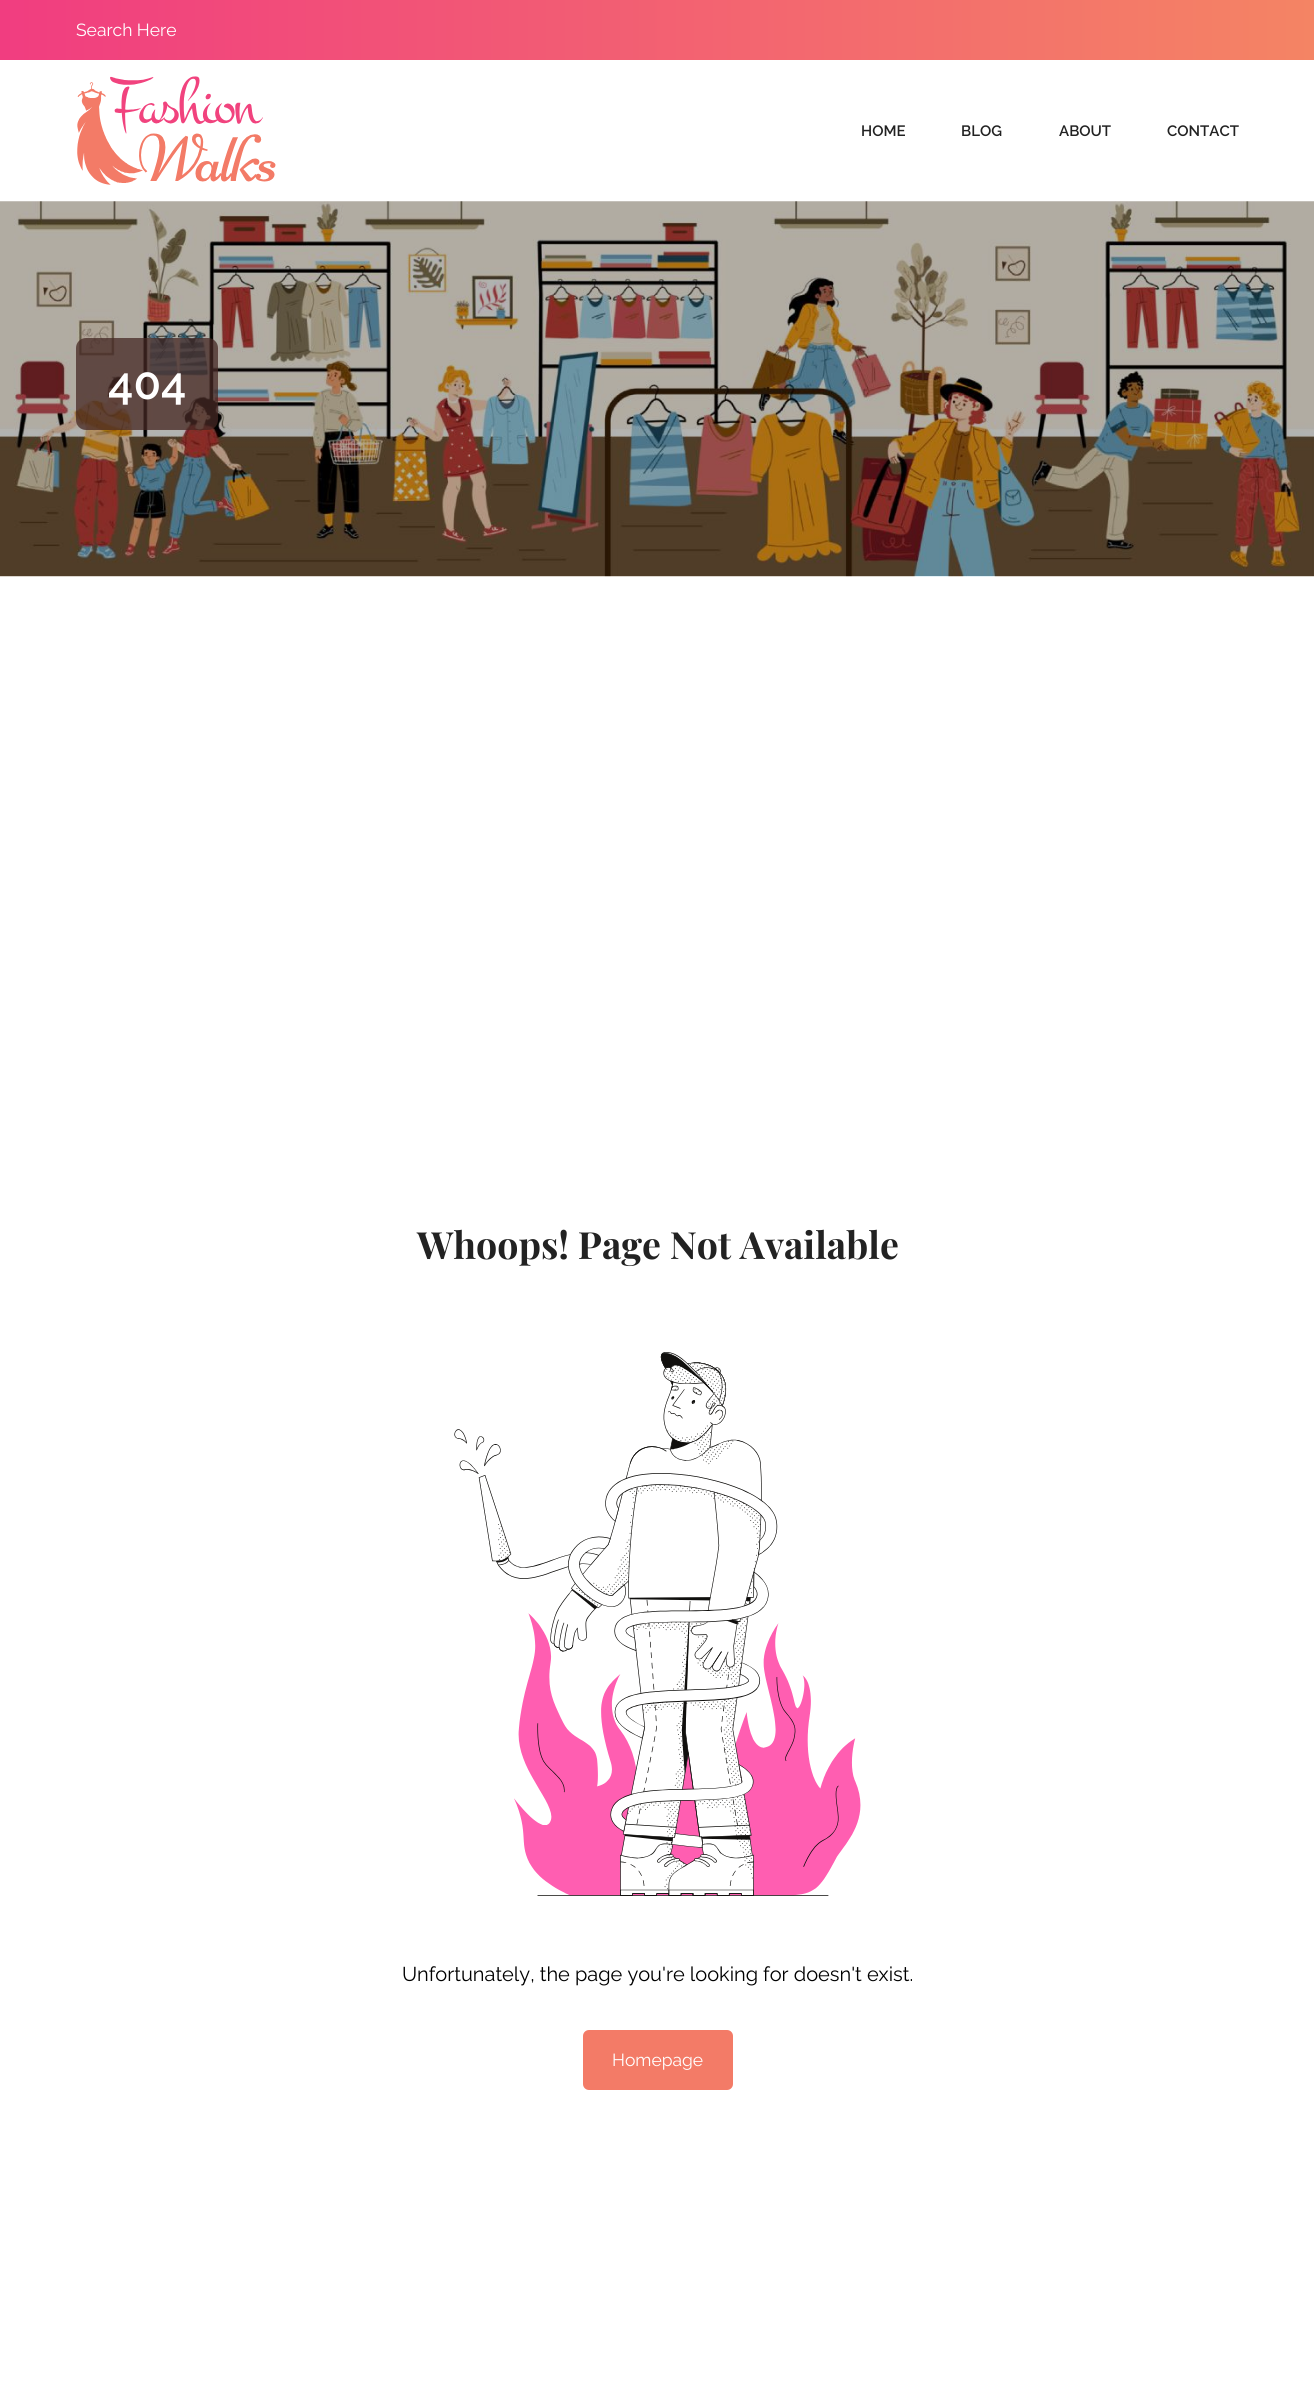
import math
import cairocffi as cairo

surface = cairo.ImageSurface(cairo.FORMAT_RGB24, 1314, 2398)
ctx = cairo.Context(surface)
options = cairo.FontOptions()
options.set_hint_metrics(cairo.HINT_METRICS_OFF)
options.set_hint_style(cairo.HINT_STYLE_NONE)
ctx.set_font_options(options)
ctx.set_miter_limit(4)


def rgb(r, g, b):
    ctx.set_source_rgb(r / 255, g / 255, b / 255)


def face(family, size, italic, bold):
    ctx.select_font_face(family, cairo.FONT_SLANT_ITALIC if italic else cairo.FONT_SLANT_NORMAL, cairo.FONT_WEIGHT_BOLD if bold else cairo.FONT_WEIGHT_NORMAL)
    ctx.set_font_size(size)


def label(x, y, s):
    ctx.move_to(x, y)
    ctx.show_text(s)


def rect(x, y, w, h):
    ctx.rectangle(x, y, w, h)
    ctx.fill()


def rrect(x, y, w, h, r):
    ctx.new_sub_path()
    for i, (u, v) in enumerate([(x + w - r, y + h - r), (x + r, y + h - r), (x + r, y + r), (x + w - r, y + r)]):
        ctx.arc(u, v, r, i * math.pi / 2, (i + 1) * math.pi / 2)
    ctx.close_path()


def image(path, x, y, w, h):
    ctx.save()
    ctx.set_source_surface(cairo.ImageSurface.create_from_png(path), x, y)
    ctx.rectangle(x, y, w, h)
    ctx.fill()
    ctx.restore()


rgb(255, 255, 255)
ctx.paint()
gradient = cairo.LinearGradient(0, 30, 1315, 30)
gradient.add_color_stop_rgba(0, 0.945, 0.239, 0.502, 1)
gradient.add_color_stop_rgba(1, 0.957, 0.518, 0.392, 1)
ctx.set_source(gradient)
rect(0, 0, 1314, 60)
face('Raleway', 17.5, 0, 0)
rgb(255, 255, 255)
label(76, 36, 'Search Here')
image('image0.png', 77, 76, 199, 109)
face('Raleway SemiBold', 15, 0, 0)
rgb(34, 34, 34)
label(861, 136, 'HOME')
label(961, 136, 'BLOG')
label(1059, 136, 'ABOUT')
label(1167, 136, 'CONTACT')
image('image1.png', 0, 201, 1314, 376)
ctx.set_source_rgba(0.275, 0.161, 0.141, 0.75)
rrect(76, 338, 142, 92, 10)
ctx.fill()
face('Raleway SemiBold', 45, 0, 0)
rgb(255, 255, 255)
label(108, 399, '404')
face('Playfair Display', 37.5, 0, 1)
rgb(34, 34, 34)
label(417, 1259, 'Whoops! Page Not Available')
image('image2.png', 454, 1352, 407, 544)
face('Raleway', 20, 0, 0)
rgb(0, 0, 0)
label(402, 1981, 'Unfortunately, the page you\'re looking for doesn\'t exist.')
rgb(243, 123, 103)
rrect(583, 2030, 150, 60, 6)
ctx.fill()
face('Raleway', 17.5, 0, 0)
rgb(255, 255, 255)
label(612, 2066, 'Homepage')
surface.write_to_png('render.png')
